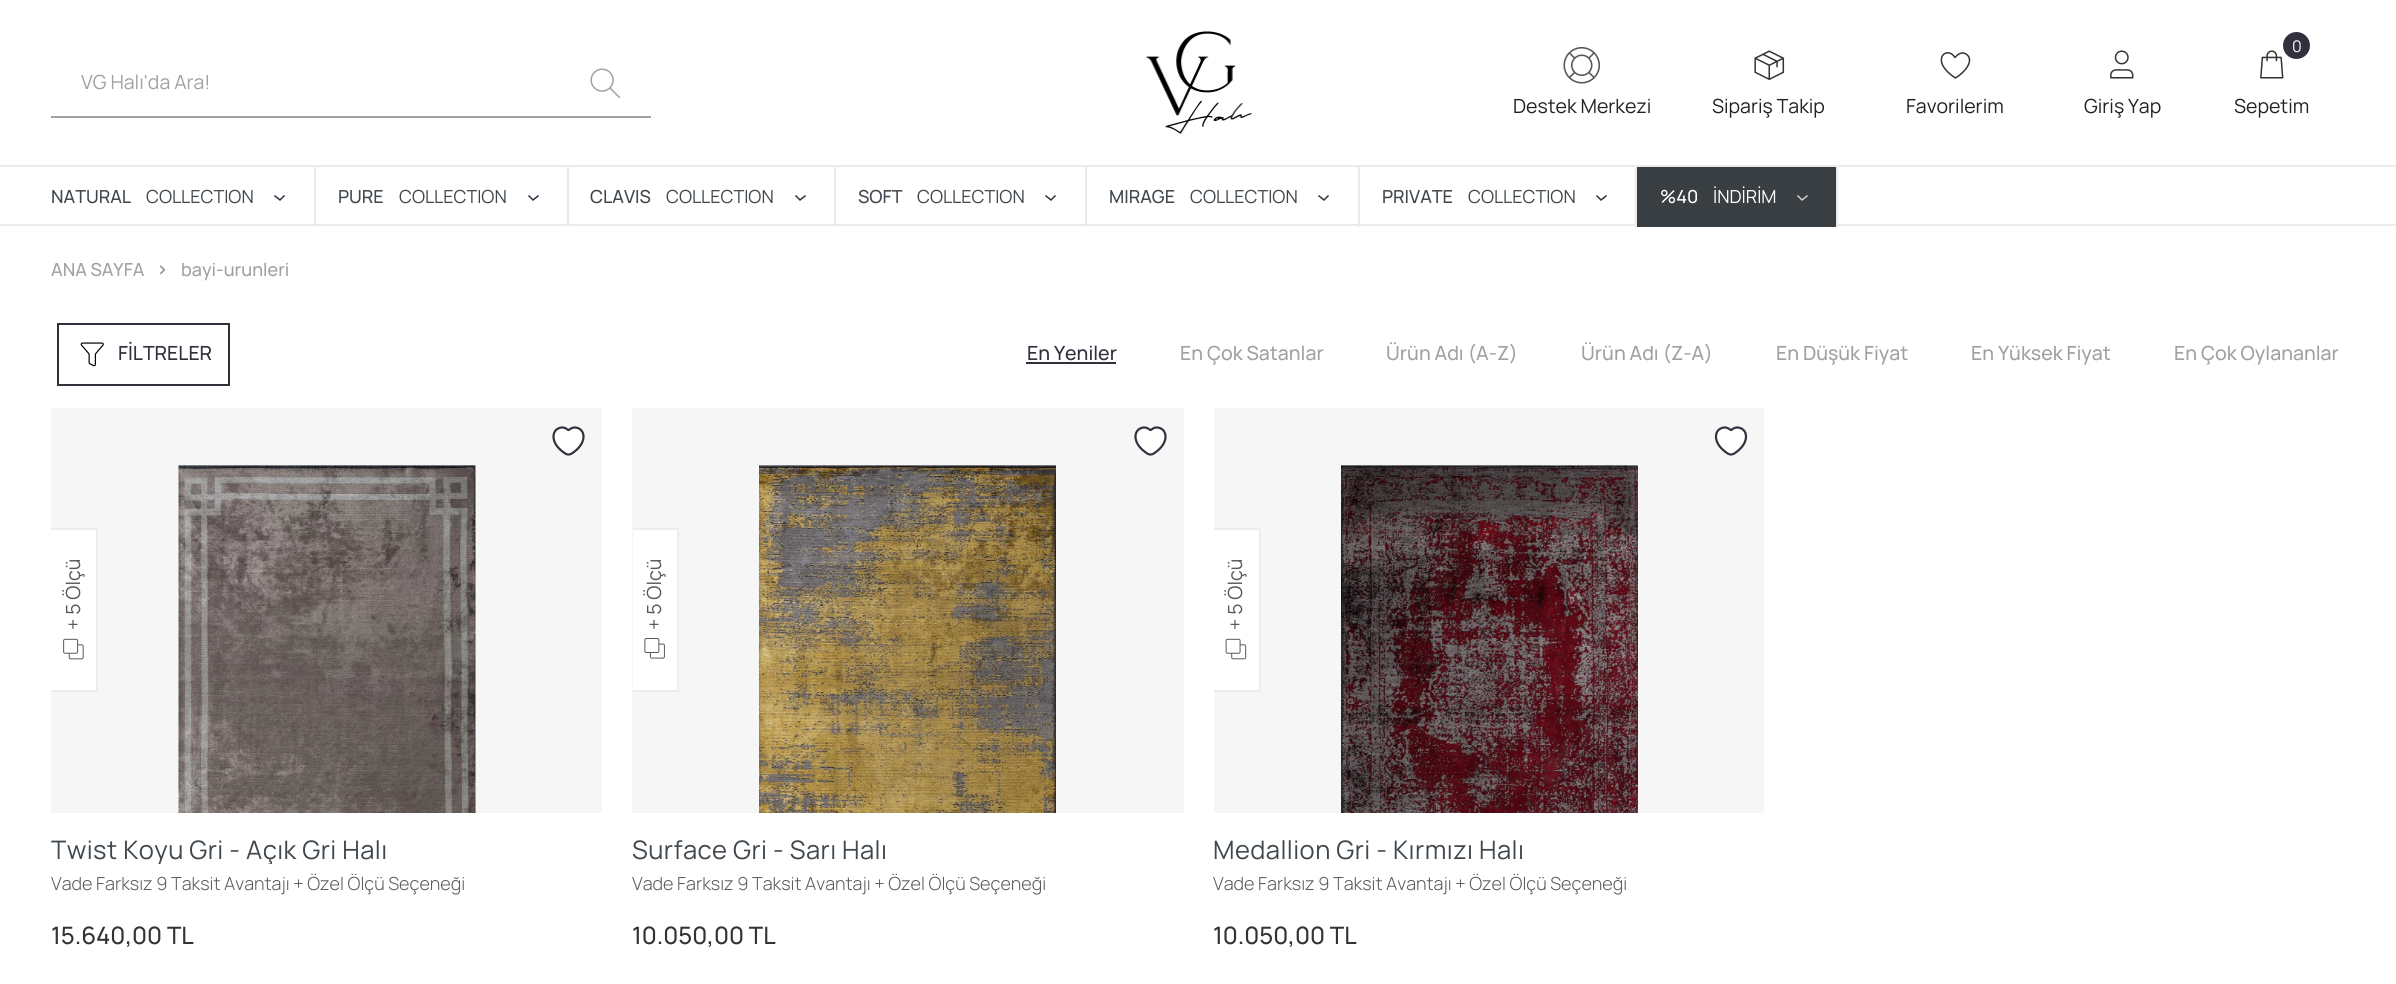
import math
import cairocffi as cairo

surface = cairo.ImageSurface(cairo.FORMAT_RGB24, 2396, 984)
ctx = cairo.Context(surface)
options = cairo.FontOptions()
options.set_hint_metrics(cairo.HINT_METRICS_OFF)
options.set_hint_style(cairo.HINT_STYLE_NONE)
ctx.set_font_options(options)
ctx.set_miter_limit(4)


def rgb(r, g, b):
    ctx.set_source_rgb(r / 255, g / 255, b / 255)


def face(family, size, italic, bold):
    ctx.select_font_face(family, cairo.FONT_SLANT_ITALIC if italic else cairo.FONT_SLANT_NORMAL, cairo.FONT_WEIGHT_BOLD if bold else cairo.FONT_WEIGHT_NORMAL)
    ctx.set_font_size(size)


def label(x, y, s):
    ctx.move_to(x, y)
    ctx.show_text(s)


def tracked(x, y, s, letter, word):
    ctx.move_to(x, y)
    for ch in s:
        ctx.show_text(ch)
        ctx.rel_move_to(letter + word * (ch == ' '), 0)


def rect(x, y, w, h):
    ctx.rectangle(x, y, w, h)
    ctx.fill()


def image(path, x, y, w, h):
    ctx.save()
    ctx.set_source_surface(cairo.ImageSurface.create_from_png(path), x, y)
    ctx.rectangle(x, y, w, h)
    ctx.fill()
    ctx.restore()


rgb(255, 255, 255)
ctx.paint()
rgb(161, 161, 161)
rect(51, 116, 600, 2)
face('Manrope', 19.5, 0, 0)
label(81, 89, 'VG Halı\'da Ara!')
image('image0.png', 590, 68, 30, 30)
image('image1.png', 1146, 31, 106, 103)
image('image2.png', 1563, 47, 38, 37)
rgb(34, 34, 34)
label(1513, 113, 'Destek Merkezi')
image('image3.png', 1754, 50, 31, 31)
label(1712, 113, 'Sipariş Takip')
ctx.new_path()
ctx.move_to(1969.5, 60)
ctx.curve_to(1969.5, 69.5, 1955.5, 78, 1955.5, 78)
ctx.curve_to(1951.5, 75.5, 1948.5, 73, 1945.5, 69.5)
ctx.curve_to(1934.5, 56.5, 1948, 46.5, 1955, 57.5)
ctx.curve_to(1955, 57.5, 1958.5, 53, 1962.5, 53)
ctx.curve_to(1966, 53, 1969.5, 56, 1969.5, 60)
ctx.close_path()
rgb(51, 51, 51)
ctx.set_line_width(1.5)
ctx.set_line_cap(cairo.LINE_CAP_ROUND)
ctx.set_line_join(cairo.LINE_JOIN_ROUND)
ctx.stroke()
rgb(34, 34, 34)
label(1906, 113, 'Favorilerim')
image('image4.png', 2110, 50, 24, 29)
label(2084, 113, 'Giriş Yap')
image('image5.png', 2260, 50, 24, 29)
rgb(51, 48, 62)
ctx.arc(2296.5, 45.5, 13.5, 0, 2 * math.pi)
ctx.fill()
face('Manrope', 16, 0, 0)
rgb(255, 255, 255)
label(2292, 52, '0')
face('Manrope', 19.5, 0, 0)
rgb(34, 34, 34)
label(2234, 113, 'Sepetim')
rgb(235, 235, 235)
rect(0, 165, 2396, 2)
rect(0, 224, 2396, 2)
rect(314, 167, 2, 60)
face('Manrope Medium', 18, 0, 0)
rgb(64, 72, 78)
label(51, 203, 'NATURAL')
face('Manrope', 18, 0, 0)
label(146, 203, 'COLLECTION')
ctx.new_path()
ctx.move_to(275, 196)
ctx.line_to(280, 200)
ctx.line_to(284, 196)
rgb(51, 48, 62)
ctx.set_line_cap(cairo.LINE_CAP_SQUARE)
ctx.set_line_join(cairo.LINE_JOIN_MITER)
ctx.stroke()
rgb(235, 235, 235)
rect(567, 167, 2, 60)
face('Manrope Medium', 18, 0, 0)
rgb(64, 72, 78)
label(338, 203, 'PURE')
face('Manrope', 18, 0, 0)
label(399, 203, 'COLLECTION')
ctx.new_path()
ctx.move_to(529, 196)
ctx.line_to(533, 200)
ctx.line_to(538, 196)
rgb(51, 48, 62)
ctx.stroke()
rgb(235, 235, 235)
rect(834, 167, 2, 60)
face('Manrope Medium', 18, 0, 0)
rgb(64, 72, 78)
label(590, 203, 'CLAVIS')
face('Manrope', 18, 0, 0)
label(666, 203, 'COLLECTION')
ctx.new_path()
ctx.move_to(796, 196)
ctx.line_to(800, 200)
ctx.line_to(805, 196)
rgb(51, 48, 62)
ctx.stroke()
rgb(235, 235, 235)
rect(1085, 167, 2, 60)
face('Manrope Medium', 18, 0, 0)
rgb(64, 72, 78)
label(858, 203, 'SOFT')
face('Manrope', 18, 0, 0)
label(917, 203, 'COLLECTION')
ctx.new_path()
ctx.move_to(1046, 196)
ctx.line_to(1051, 200)
ctx.line_to(1055, 196)
rgb(51, 48, 62)
ctx.stroke()
rgb(235, 235, 235)
rect(1358, 167, 2, 60)
face('Manrope Medium', 18, 0, 0)
rgb(64, 72, 78)
label(1109, 203, 'MIRAGE')
face('Manrope', 18, 0, 0)
label(1190, 203, 'COLLECTION')
ctx.new_path()
ctx.move_to(1319, 196)
ctx.line_to(1324, 200)
ctx.line_to(1328, 196)
rgb(51, 48, 62)
ctx.stroke()
rgb(235, 235, 235)
rect(1635, 167, 2, 60)
face('Manrope Medium', 18, 0, 0)
rgb(64, 72, 78)
label(1382, 203, 'PRIVATE')
face('Manrope', 18, 0, 0)
label(1468, 203, 'COLLECTION')
ctx.new_path()
ctx.move_to(1597, 196)
ctx.line_to(1601, 200)
ctx.line_to(1606, 196)
rgb(51, 48, 62)
ctx.stroke()
rgb(235, 235, 235)
rect(1836, 167, 2, 60)
rgb(56, 62, 66)
rect(1637, 167, 199, 60)
face('Manrope Medium', 18, 0, 0)
rgb(255, 255, 255)
label(1660, 203, '%40')
face('Manrope', 18, 0, 0)
label(1713, 203, 'İNDİRİM')
ctx.new_path()
ctx.move_to(1798, 196)
ctx.line_to(1802, 200)
ctx.line_to(1807, 196)
rgb(204, 207, 193)
ctx.stroke()
face('Manrope Medium', 18, 0, 0)
rgb(161, 161, 161)
label(51, 276, 'ANA SAYFA')
face('Manrope Medium', 19.5, 0, 0)
rgb(142, 142, 142)
label(156, 276, '>')
face('Manrope Medium', 18, 0, 0)
rgb(161, 161, 161)
label(181, 276, 'bayi-urunleri')
ctx.rectangle(58, 324, 171, 61)
rgb(51, 48, 62)
ctx.set_line_width(2)
ctx.set_line_cap(cairo.LINE_CAP_BUTT)
ctx.stroke()
image('image6.png', 80, 342, 24, 25)
face('Manrope Medium', 19.5, 0, 0)
label(118, 360, 'FİLTRELER')
label(1027, 360, 'En Yeniler')
rect(1026, 362, 90, 2)
rgb(161, 161, 161)
label(1180, 360, 'En Çok Satanlar')
label(1386, 360, 'Ürün Adı (A-Z)')
label(1581, 360, 'Ürün Adı (Z-A)')
label(1776, 360, 'En Düşük Fiyat')
label(1971, 360, 'En Yüksek Fiyat')
label(2174, 360, 'En Çok Oylananlar')
rgb(246, 246, 246)
rect(51, 408, 551, 405)
image('image7.png', 178, 465, 298, 348)
image('image8.png', 552, 426, 33, 30)
rgb(255, 255, 255)
rect(51, 530, 45, 160)
rgb(237, 237, 237)
rect(51, 690, 47, 2)
rect(51, 528, 47, 2)
rect(96, 528, 2, 164)
face('Manrope', 19.5, 0, 0)
rgb(89, 89, 89)
ctx.save()
ctx.translate(80, 630)
ctx.rotate(-90 * math.pi / 180)
label(0, 0, '+ 5 Ölçü')
ctx.restore()
image('image9.png', 63, 638, 21, 22)
ctx.save()
ctx.rectangle(51, 837, 551, 27)
ctx.clip()
face('Manrope', 25.5, 0, 0)
rgb(64, 72, 78)
tracked(51, 859, 'Twist Koyu Gri - Açık Gri Halı', 0.45, 0)
ctx.restore()
face('Manrope Light', 18, 0, 0)
label(51, 890, 'Vade Farksız 9 Taksit Avantajı + Özel Ölçü Seçeneği')
face('Manrope Medium', 24, 0, 0)
rgb(51, 51, 51)
label(51, 944, '15.640,00 TL')
rgb(246, 246, 246)
rect(632, 408, 552, 405)
image('image10.png', 759, 465, 297, 348)
image('image8.png', 1134, 426, 33, 30)
rgb(255, 255, 255)
rect(633, 530, 44, 160)
rgb(237, 237, 237)
rect(633, 690, 45, 2)
rect(633, 528, 45, 2)
rect(677, 528, 2, 164)
face('Manrope', 19.5, 0, 0)
rgb(89, 89, 89)
ctx.save()
ctx.translate(661, 630)
ctx.rotate(-90 * math.pi / 180)
label(0, 0, '+ 5 Ölçü')
ctx.restore()
image('image11.png', 644, 638, 21, 21)
face('Manrope', 25.5, 0, 0)
rgb(64, 72, 78)
tracked(632, 859, 'Surface Gri - Sarı Halı', 0.45, 0)
face('Manrope Light', 18, 0, 0)
rgb(89, 89, 89)
label(632, 890, 'Vade Farksız 9 Taksit Avantajı + Özel Ölçü Seçeneği')
face('Manrope Medium', 24, 0, 0)
rgb(51, 51, 51)
label(632, 944, '10.050,00 TL')
rgb(246, 246, 246)
rect(1214, 408, 550, 405)
image('image12.png', 1341, 465, 297, 348)
image('image13.png', 1714, 426, 34, 30)
rgb(255, 255, 255)
rect(1214, 530, 45, 160)
rgb(237, 237, 237)
rect(1214, 690, 46, 2)
rect(1214, 528, 46, 2)
rect(1259, 528, 2, 164)
face('Manrope', 19.5, 0, 0)
rgb(89, 89, 89)
ctx.save()
ctx.translate(1242, 630)
ctx.rotate(-90 * math.pi / 180)
label(0, 0, '+ 5 Ölçü')
ctx.restore()
image('image14.png', 1225, 638, 22, 22)
face('Manrope', 25.5, 0, 0)
rgb(64, 72, 78)
tracked(1213, 859, 'Medallion Gri - Kırmızı Halı', 0.45, 0)
face('Manrope Light', 18, 0, 0)
rgb(89, 89, 89)
label(1213, 890, 'Vade Farksız 9 Taksit Avantajı + Özel Ölçü Seçeneği')
face('Manrope Medium', 24, 0, 0)
rgb(51, 51, 51)
label(1213, 944, '10.050,00 TL')
surface.write_to_png('render.png')
